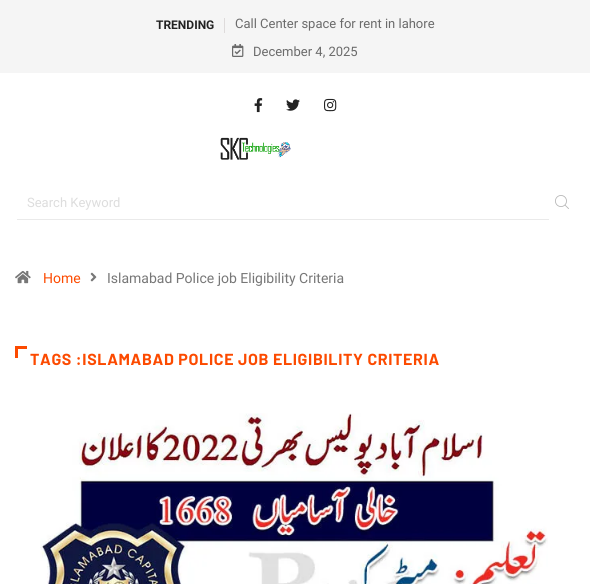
import math
import cairocffi as cairo

surface = cairo.ImageSurface(cairo.FORMAT_RGB24, 590, 584)
ctx = cairo.Context(surface)
options = cairo.FontOptions()
options.set_hint_metrics(cairo.HINT_METRICS_OFF)
options.set_hint_style(cairo.HINT_STYLE_NONE)
ctx.set_font_options(options)
ctx.set_miter_limit(4)


def rgb(r, g, b):
    ctx.set_source_rgb(r / 255, g / 255, b / 255)


def face(family, size, italic, bold):
    ctx.select_font_face(family, cairo.FONT_SLANT_ITALIC if italic else cairo.FONT_SLANT_NORMAL, cairo.FONT_WEIGHT_BOLD if bold else cairo.FONT_WEIGHT_NORMAL)
    ctx.set_font_size(size)


def label(x, y, s):
    ctx.move_to(x, y)
    ctx.show_text(s)


def tracked(x, y, s, letter, word):
    ctx.move_to(x, y)
    for ch in s:
        ctx.show_text(ch)
        ctx.rel_move_to(letter + word * (ch == ' '), 0)


def rect(x, y, w, h):
    ctx.rectangle(x, y, w, h)
    ctx.fill()


def image(path, x, y, w, h):
    ctx.save()
    ctx.set_source_surface(cairo.ImageSurface.create_from_png(path), x, y)
    ctx.rectangle(x, y, w, h)
    ctx.fill()
    ctx.restore()


rgb(255, 255, 255)
ctx.paint()
rgb(245, 245, 245)
rect(0, 0, 590, 73)
rgb(222, 219, 219)
rect(224, 18, 1, 15)
face('Roboto', 12, 0, 1)
rgb(34, 34, 34)
label(156, 29, 'TRENDING')
face('Roboto', 13, 0, 0)
rgb(107, 107, 107)
label(235, 28, 'Call Center space for rent in lahore')
image('image0.png', 232, 44, 12, 13)
label(253, 56, 'December 4, 2025')
image('image1.png', 254, 98, 9, 15)
image('image2.png', 286, 99, 14, 12)
image('image3.png', 324, 98, 13, 14)
image('image4.png', 220, 137, 71, 23)
rgb(234, 234, 234)
rect(17, 219, 532, 1)
rgb(221, 221, 221)
label(27, 207, 'Search Keyword')
image('image5.png', 555, 195, 14, 14)
image('image6.png', 15, 270, 16, 14)
face('Roboto', 14, 0, 0)
rgb(252, 74, 0)
label(43, 283, 'Home')
image('image7.png', 90, 272, 7, 10)
rgb(119, 119, 119)
label(107, 283, 'Islamabad Police job Eligibility Criteria')
rgb(252, 74, 0)
rect(15, 346, 3, 12)
rect(15, 346, 12, 3)
face('Barlow', 16, 0, 1)
tracked(30, 365, 'TAGS :ISLAMABAD POLICE JOB ELIGIBILITY CRITERIA', 0.65, 0)
image('image8.png', 40, 413, 508, 171)
surface.write_to_png('render.png')
